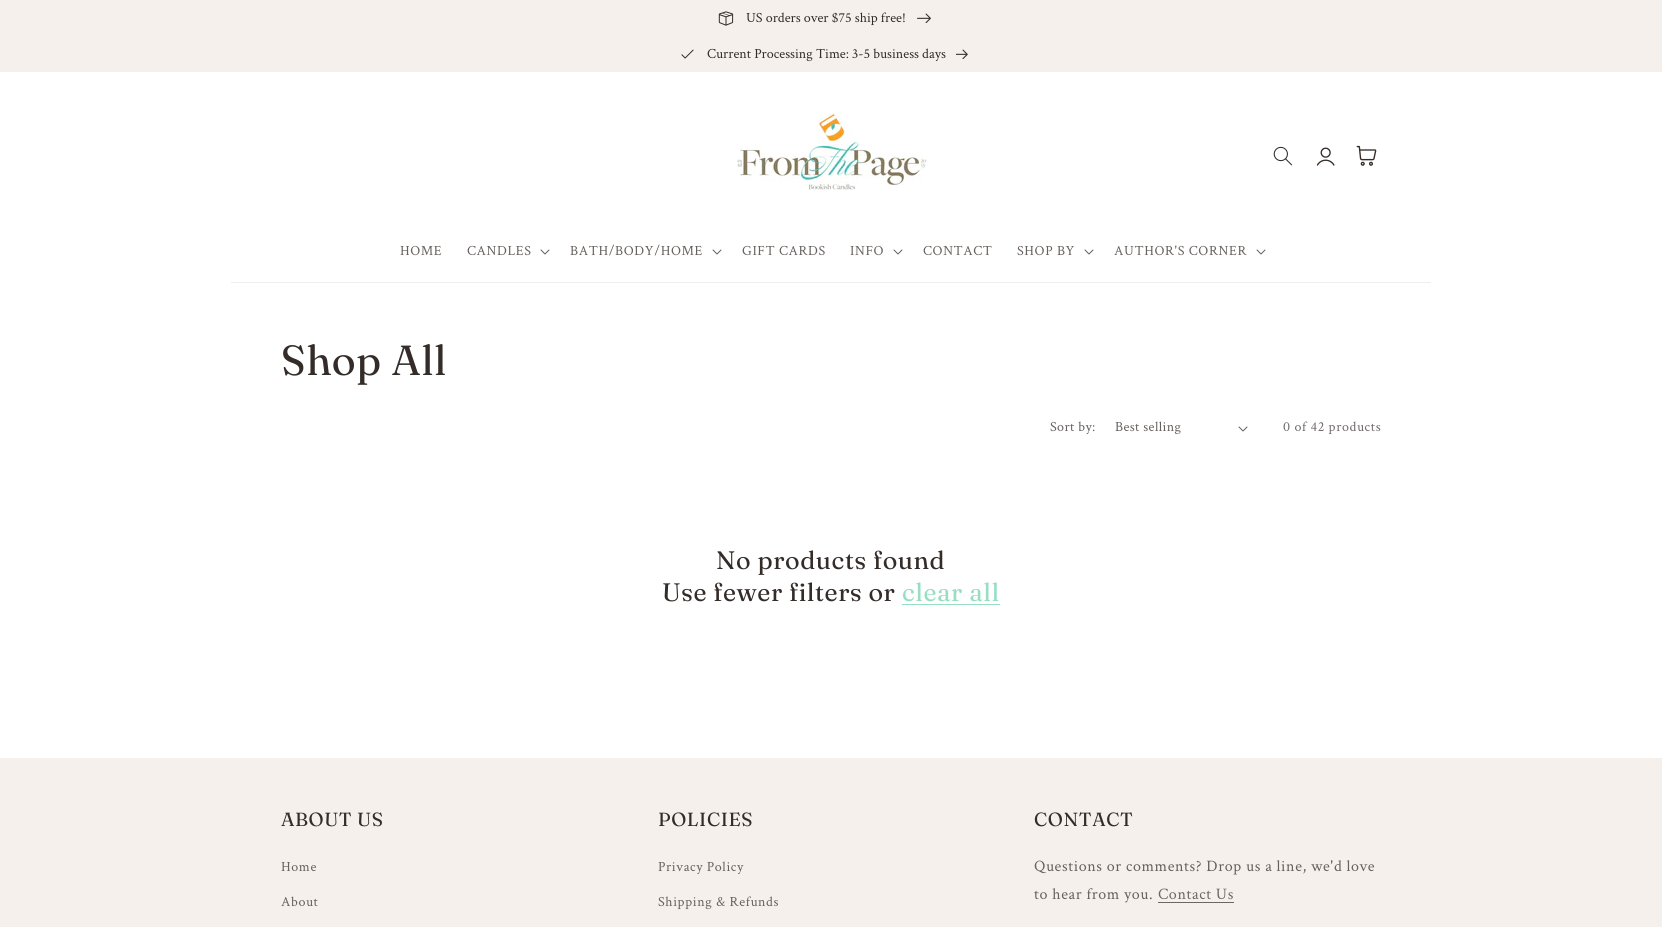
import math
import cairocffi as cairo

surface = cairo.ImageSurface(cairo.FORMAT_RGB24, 1662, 927)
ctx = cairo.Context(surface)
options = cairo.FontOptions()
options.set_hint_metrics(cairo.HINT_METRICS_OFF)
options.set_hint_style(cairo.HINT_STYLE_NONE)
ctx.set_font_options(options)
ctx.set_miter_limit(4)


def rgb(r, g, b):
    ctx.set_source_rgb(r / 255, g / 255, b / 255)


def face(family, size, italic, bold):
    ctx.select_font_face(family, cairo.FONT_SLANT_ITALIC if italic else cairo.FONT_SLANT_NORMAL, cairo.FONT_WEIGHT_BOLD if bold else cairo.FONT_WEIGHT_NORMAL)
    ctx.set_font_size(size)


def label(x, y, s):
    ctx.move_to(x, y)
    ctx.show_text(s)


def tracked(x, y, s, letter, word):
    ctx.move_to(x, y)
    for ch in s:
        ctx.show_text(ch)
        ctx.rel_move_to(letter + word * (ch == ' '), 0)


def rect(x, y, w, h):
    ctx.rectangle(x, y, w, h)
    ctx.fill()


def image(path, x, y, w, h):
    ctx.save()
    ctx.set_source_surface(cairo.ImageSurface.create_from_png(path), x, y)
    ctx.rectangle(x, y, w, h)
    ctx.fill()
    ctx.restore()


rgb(255, 255, 255)
ctx.paint()
rgb(245, 240, 235)
rect(0, 0, 1662, 72)
image('image0.png', 718, 11, 16, 15)
face('Crimson Text', 14, 0, 0)
rgb(51, 44, 40)
label(746, 22, 'US orders over $75 ship free!')
image('image1.png', 917, 13, 14, 10)
image('image2.png', 681, 49, 13, 10)
label(707, 58, 'Current Processing Time: 3-5 business days')
image('image3.png', 956, 49, 12, 10)
rgb(239, 238, 238)
rect(231, 282, 1200, 1)
image('image4.png', 735, 113, 192, 77)
image('image5.png', 1273, 146, 19, 20)
image('image6.png', 1317, 147, 18, 19)
image('image7.png', 1356, 145, 21, 21)
rgb(102, 97, 94)
tracked(400, 255, 'HOME', 0.6, 0)
tracked(467, 255, 'CANDLES', 0.6, 0)
image('image8.png', 540, 249, 10, 6)
tracked(570, 255, 'BATH/BODY/HOME', 0.6, 0)
image('image8.png', 712, 249, 10, 6)
tracked(742, 255, 'GIFT CARDS', 0.6, 0)
tracked(850, 255, 'INFO', 0.6, 0)
image('image8.png', 893, 249, 10, 6)
tracked(923, 255, 'CONTACT', 0.6, 0)
tracked(1017, 255, 'SHOP BY', 0.6, 0)
image('image8.png', 1084, 249, 10, 6)
tracked(1114, 255, 'AUTHOR\'S CORNER', 0.6, 0)
image('image8.png', 1256, 249, 10, 6)
face('Fraunces', 42, 0, 0)
rgb(51, 44, 40)
tracked(281, 375, 'Shop All', 0.6, 0)
face('Crimson Text', 14, 0, 0)
rgb(102, 97, 94)
tracked(1050, 431, 'Sort by:', 0.4, 0)
tracked(1115, 431, 'Best selling', 0.4, 0)
image('image8.png', 1238, 426, 10, 6)
rgb(112, 107, 105)
tracked(1283, 431, '0 of 42 products', 0.6, 0)
face('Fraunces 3', 25.25, 0, 0)
rgb(51, 44, 40)
tracked(716, 569, 'No products found', 0.6, 0)
tracked(662, 601, 'Use fewer filters or', 0.6, 0)
rgb(151, 222, 196)
tracked(902, 601, 'clear all', 0.6, 0)
rect(902, 604, 98, 1)
rgb(245, 240, 235)
rect(0, 758, 1662, 169)
face('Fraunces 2', 19, 0, 0)
rgb(51, 44, 40)
tracked(281, 826, 'ABOUT US', 0.6, 0)
face('Crimson Text', 14, 0, 0)
rgb(102, 97, 94)
tracked(281, 871, 'Home', 0.6, 0)
tracked(281, 906, 'About', 0.6, 0)
face('Fraunces 2', 19, 0, 0)
rgb(51, 44, 40)
tracked(658, 826, 'POLICIES', 0.6, 0)
face('Crimson Text', 14, 0, 0)
rgb(102, 97, 94)
tracked(658, 871, 'Privacy Policy', 0.6, 0)
tracked(658, 906, 'Shipping & Refunds', 0.6, 0)
face('Fraunces 2', 19, 0, 0)
rgb(51, 44, 40)
tracked(1034, 826, 'CONTACT', 0.6, 0)
face('Crimson Text', 16, 0, 0)
rgb(102, 97, 94)
tracked(1034, 871, 'Questions or comments? Drop us a line, we\'d love', 0.6, 0)
tracked(1034, 899, 'to hear from you.', 0.6, 0)
rgb(109, 103, 99)
tracked(1158, 899, 'Contact Us', 0.6, 0)
rect(1158, 902, 76, 1)
surface.write_to_png('render.png')
